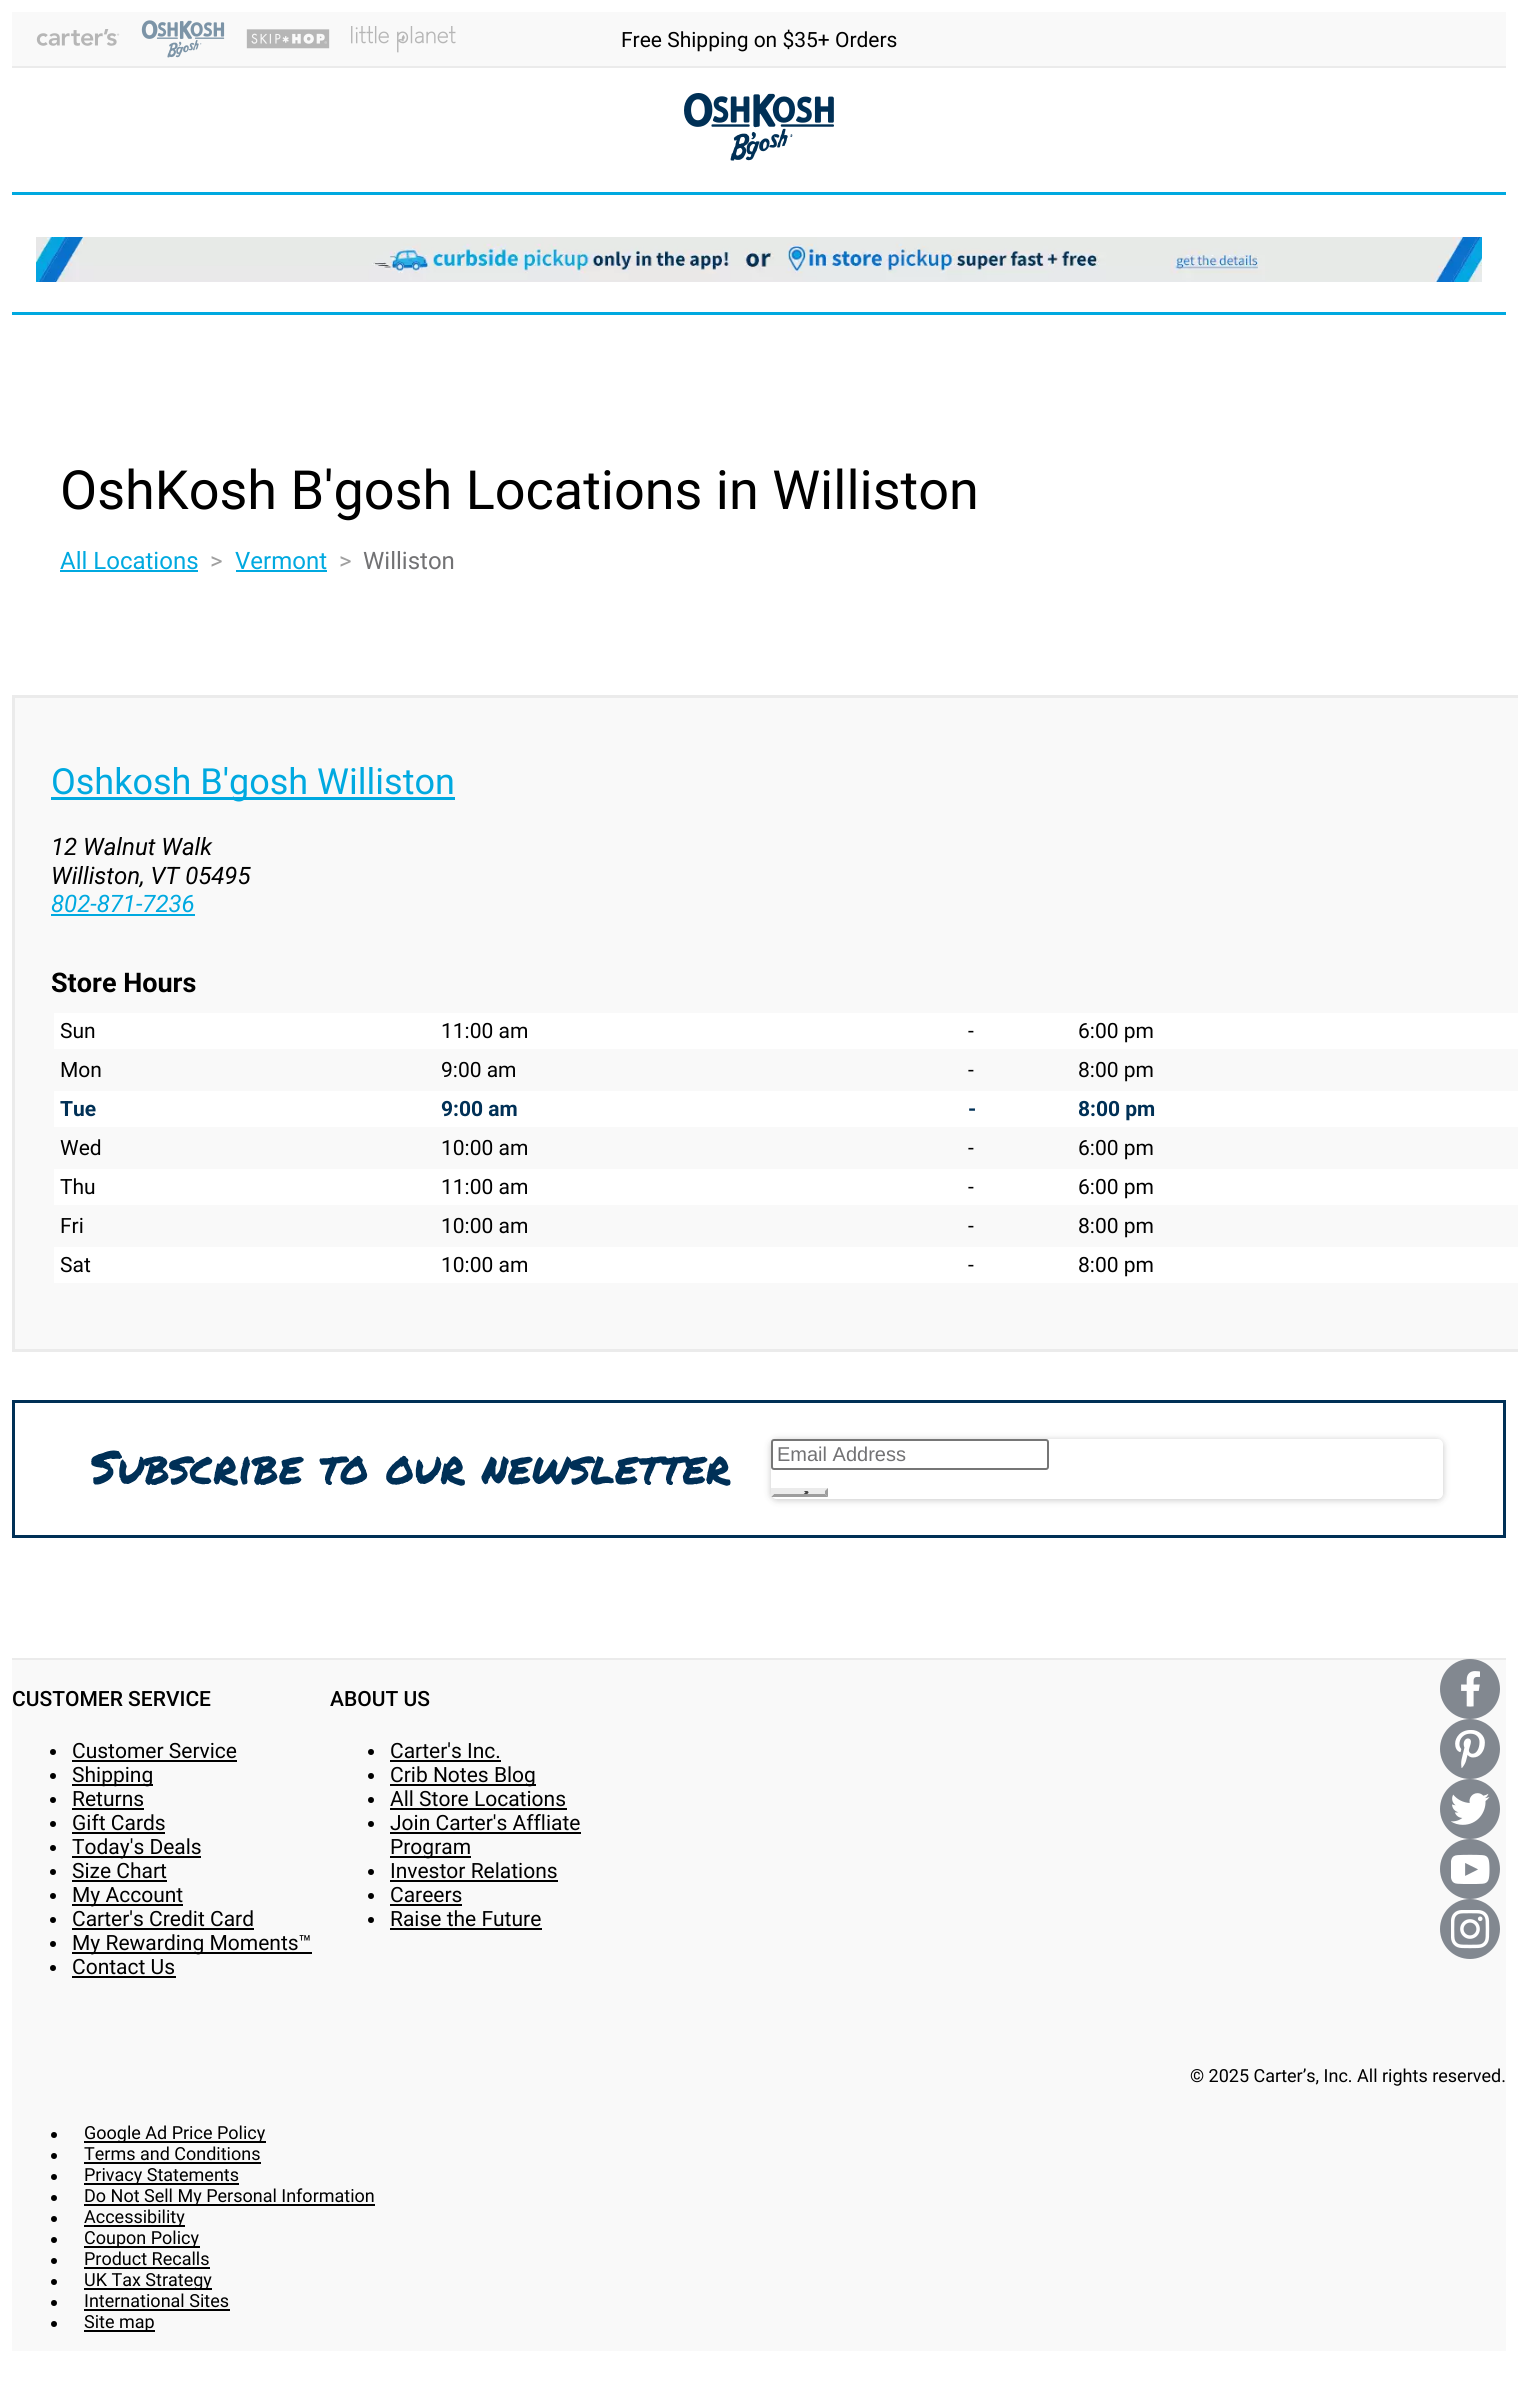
import math
import cairocffi as cairo

surface = cairo.ImageSurface(cairo.FORMAT_RGB24, 1518, 2388)
ctx = cairo.Context(surface)
options = cairo.FontOptions()
options.set_hint_metrics(cairo.HINT_METRICS_OFF)
options.set_hint_style(cairo.HINT_STYLE_NONE)
ctx.set_font_options(options)
ctx.set_miter_limit(4)


def rgb(r, g, b):
    ctx.set_source_rgb(r / 255, g / 255, b / 255)


def face(family, size, italic, bold):
    ctx.select_font_face(family, cairo.FONT_SLANT_ITALIC if italic else cairo.FONT_SLANT_NORMAL, cairo.FONT_WEIGHT_BOLD if bold else cairo.FONT_WEIGHT_NORMAL)
    ctx.set_font_size(size)


def label(x, y, s):
    ctx.move_to(x, y)
    ctx.show_text(s)


def rect(x, y, w, h):
    ctx.rectangle(x, y, w, h)
    ctx.fill()


def rrect(x, y, w, h, r):
    ctx.new_sub_path()
    for i, (u, v) in enumerate([(x + w - r, y + h - r), (x + r, y + h - r), (x + r, y + r), (x + w - r, y + r)]):
        ctx.arc(u, v, r, i * math.pi / 2, (i + 1) * math.pi / 2)
    ctx.close_path()


def soft_shadow(x, y, w, h, r, blur, alpha):
    ctx.push_group_with_content(cairo.CONTENT_ALPHA)
    ctx.set_operator(cairo.OPERATOR_SOURCE)
    for i in range(15, -16, -2):
        e = blur * i / 6
        if min(w, h) + 2 * e > 0:
            ctx.set_source_rgba(0, 0, 0, alpha * math.erfc((i - 1) / 8.5) / 2)
            rrect(x - e, y - e, w + 2 * e, h + 2 * e, max(0, min(r + e + blur * .6, min(w, h) / 2 + e)))
            ctx.fill()
    ctx.mask(ctx.pop_group())


def image(path, x, y, w, h):
    ctx.save()
    ctx.set_source_surface(cairo.ImageSurface.create_from_png(path), x, y)
    ctx.rectangle(x, y, w, h)
    ctx.fill()
    ctx.restore()


rgb(255, 255, 255)
ctx.paint()
rgb(249, 249, 249)
rect(12, 12, 1494, 54)
rgb(235, 235, 235)
rect(12, 66, 1494, 2)
image('image0.png', 36, 29, 84, 17)
image('image1.png', 141, 20, 84, 38)
image('image2.png', 246, 29, 84, 20)
image('image3.png', 351, 26, 105, 27)
face('Roboto', 21, 0, 0)
rgb(0, 0, 0)
label(621, 47, 'Free Shipping on $35+ Orders')
image('image4.png', 684, 93, 150, 68)
rgb(0, 169, 224)
rect(12, 192, 1494, 3)
image('image5.png', 36, 237, 1446, 45)
rect(12, 312, 1494, 3)
face('Roboto', 54, 0, 0)
rgb(0, 0, 0)
label(60, 509, 'OshKosh B\'gosh Locations in Williston')
face('Roboto', 24, 0, 0)
rgb(0, 169, 224)
label(60, 569, 'All Locations')
rect(60, 570, 138, 2)
rgb(160, 160, 160)
label(210, 569, '>')
rgb(0, 169, 224)
label(235, 569, 'Vermont')
rect(236, 570, 91, 2)
rgb(160, 160, 160)
label(339, 569, '>')
rgb(114, 114, 116)
label(363, 569, 'Williston')
rgb(249, 249, 249)
ctx.rectangle(13.5, 696.5, 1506, 654)
ctx.fill_preserve()
rgb(235, 235, 235)
ctx.set_line_width(3)
ctx.stroke()
rgb(0, 169, 224)
rect(51, 797, 404, 3)
face('Roboto', 36, 0, 0)
label(51, 794, 'Oshkosh B\'gosh Williston')
face('Roboto', 24, 1, 0)
rgb(0, 0, 0)
label(51, 855, '12 Walnut Walk')
label(51, 884, 'Williston, VT 05495')
rgb(0, 169, 224)
label(51, 912, '802-871-7236')
rect(51, 914, 144, 2)
face('Roboto', 27, 0, 1)
rgb(0, 0, 0)
label(51, 992, 'Store Hours')
rgb(255, 255, 255)
rect(54, 1013, 1464, 36)
face('Roboto', 21, 0, 0)
rgb(0, 0, 0)
label(60, 1038, 'Sun')
label(441, 1038, '11:00 am')
label(968, 1038, '-')
label(1078, 1038, '6:00 pm')
label(60, 1077, 'Mon')
label(441, 1077, '9:00 am')
label(968, 1077, '-')
label(1078, 1077, '8:00 pm')
rgb(255, 255, 255)
rect(54, 1091, 1464, 36)
face('Roboto', 21, 0, 1)
rgb(0, 48, 86)
label(60, 1116, 'Tue')
label(441, 1116, '9:00 am')
label(968, 1116, '-')
label(1078, 1116, '8:00 pm')
face('Roboto', 21, 0, 0)
rgb(0, 0, 0)
label(60, 1155, 'Wed')
label(441, 1155, '10:00 am')
label(968, 1155, '-')
label(1078, 1155, '6:00 pm')
rgb(255, 255, 255)
rect(54, 1169, 1464, 36)
rgb(0, 0, 0)
label(60, 1194, 'Thu')
label(441, 1194, '11:00 am')
label(968, 1194, '-')
label(1078, 1194, '6:00 pm')
label(60, 1233, 'Fri')
label(441, 1233, '10:00 am')
label(968, 1233, '-')
label(1078, 1233, '8:00 pm')
rgb(255, 255, 255)
rect(54, 1247, 1464, 36)
rgb(0, 0, 0)
label(60, 1272, 'Sat')
label(441, 1272, '10:00 am')
label(968, 1272, '-')
label(1078, 1272, '8:00 pm')
ctx.rectangle(13.5, 1401.5, 1491, 135)
rgb(0, 48, 86)
ctx.stroke()
image('image6.png', 91, 1450, 640, 36)
ctx.save()
ctx.set_fill_rule(cairo.FILL_RULE_EVEN_ODD)
ctx.new_path()
ctx.move_to(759, 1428)
ctx.line_to(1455, 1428)
ctx.line_to(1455, 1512)
ctx.line_to(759, 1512)
ctx.close_path()
ctx.move_to(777, 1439)
ctx.line_to(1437, 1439)
ctx.curve_to(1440.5, 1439, 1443, 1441.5, 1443, 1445)
ctx.line_to(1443, 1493)
ctx.curve_to(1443, 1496.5, 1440.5, 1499, 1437, 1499)
ctx.line_to(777, 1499)
ctx.curve_to(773.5, 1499, 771, 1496.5, 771, 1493)
ctx.line_to(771, 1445)
ctx.curve_to(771, 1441.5, 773.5, 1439, 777, 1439)
ctx.close_path()
ctx.clip()
rgb(29, 29, 29)
soft_shadow(771, 1440, 672, 60, 6, 3.5, 0.25)
ctx.restore()
rgb(255, 255, 255)
rrect(772, 1440, 276, 29, 2)
ctx.fill_preserve()
rgb(118, 118, 118)
ctx.set_line_width(2)
ctx.stroke()
face('Liberation Sans', 20, 0, 0)
rgb(114, 114, 116)
label(777, 1461, 'Email Address')
rgb(235, 235, 235)
rect(771, 1488, 57, 9)
image('image7.png', 803, 1491, 6, 3)
rgb(157, 157, 157)
ctx.new_path()
ctx.move_to(828, 1488)
ctx.line_to(828, 1497)
ctx.line_to(825, 1494)
ctx.line_to(825, 1491)
ctx.close_path()
ctx.fill()
ctx.new_path()
ctx.move_to(828, 1497)
ctx.line_to(771, 1497)
ctx.line_to(774, 1494)
ctx.line_to(825, 1494)
ctx.close_path()
ctx.fill()
rgb(235, 235, 235)
ctx.new_path()
ctx.move_to(771, 1497)
ctx.line_to(771, 1488)
ctx.line_to(774, 1491)
ctx.line_to(774, 1494)
ctx.close_path()
ctx.fill()
rgb(249, 249, 249)
rect(12, 1660, 1494, 691)
rgb(235, 235, 235)
rect(12, 1658, 1494, 2)
face('Roboto Medium', 21, 0, 0)
rgb(0, 0, 0)
label(12, 1706, 'CUSTOMER SERVICE')
ctx.new_path()
ctx.arc(53, 1752, 3, 0, 2 * math.pi)
ctx.fill()
face('Roboto', 21, 0, 0)
label(72, 1758, 'Customer Service')
rect(72, 1760, 165, 2)
ctx.new_path()
ctx.arc(53, 1776, 3, 0, 2 * math.pi)
ctx.fill()
rect(72, 1784, 81, 2)
label(72, 1782, 'Shipping')
ctx.new_path()
ctx.arc(53, 1800, 3, 0, 2 * math.pi)
ctx.fill()
label(72, 1806, 'Returns')
rect(72, 1808, 72, 2)
ctx.new_path()
ctx.arc(53, 1824, 3, 0, 2 * math.pi)
ctx.fill()
label(72, 1830, 'Gift Cards')
rect(72, 1832, 93, 2)
ctx.new_path()
ctx.arc(53, 1848, 3, 0, 2 * math.pi)
ctx.fill()
rect(72, 1856, 129, 2)
label(72, 1854, 'Today\'s Deals')
ctx.new_path()
ctx.arc(53, 1872, 3, 0, 2 * math.pi)
ctx.fill()
label(72, 1878, 'Size Chart')
rect(72, 1880, 95, 2)
ctx.new_path()
ctx.arc(53, 1896, 3, 0, 2 * math.pi)
ctx.fill()
rect(72, 1904, 111, 2)
label(72, 1902, 'My Account')
ctx.new_path()
ctx.arc(53, 1920, 3, 0, 2 * math.pi)
ctx.fill()
label(72, 1926, 'Carter\'s Credit Card')
rect(72, 1928, 182, 2)
ctx.new_path()
ctx.arc(53, 1944, 3, 0, 2 * math.pi)
ctx.fill()
rect(72, 1952, 240, 2)
label(72, 1950, 'My Rewarding Moments™')
ctx.new_path()
ctx.arc(53, 1968, 3, 0, 2 * math.pi)
ctx.fill()
label(72, 1974, 'Contact Us')
rect(72, 1976, 104, 2)
face('Roboto Medium', 21, 0, 0)
label(330, 1706, 'ABOUT US')
ctx.new_path()
ctx.arc(371, 1752, 3, 0, 2 * math.pi)
ctx.fill()
face('Roboto', 21, 0, 0)
label(390, 1758, 'Carter\'s Inc.')
rect(390, 1760, 111, 2)
ctx.new_path()
ctx.arc(371, 1776, 3, 0, 2 * math.pi)
ctx.fill()
rect(390, 1784, 146, 2)
label(390, 1782, 'Crib Notes Blog')
ctx.new_path()
ctx.arc(371, 1800, 3, 0, 2 * math.pi)
ctx.fill()
label(390, 1806, 'All Store Locations')
rect(390, 1808, 177, 2)
ctx.new_path()
ctx.arc(371, 1824, 3, 0, 2 * math.pi)
ctx.fill()
label(390, 1830, 'Join Carter\'s Affliate')
rect(390, 1832, 191, 2)
rect(390, 1856, 81, 2)
label(390, 1854, 'Program')
ctx.new_path()
ctx.arc(371, 1872, 3, 0, 2 * math.pi)
ctx.fill()
label(390, 1878, 'Investor Relations')
rect(390, 1880, 168, 2)
ctx.new_path()
ctx.arc(371, 1896, 3, 0, 2 * math.pi)
ctx.fill()
label(390, 1902, 'Careers')
rect(390, 1904, 72, 2)
ctx.new_path()
ctx.arc(371, 1920, 3, 0, 2 * math.pi)
ctx.fill()
label(390, 1926, 'Raise the Future')
rect(390, 1928, 152, 2)
rgb(130, 136, 144)
ctx.new_path()
ctx.arc(1470, 1689, 30, 0, 2 * math.pi)
ctx.fill()
image('image8.png', 1461, 1671, 19, 36)
ctx.arc(1470, 1749, 30, 0, 2 * math.pi)
ctx.fill()
image('image9.png', 1455, 1730, 30, 38)
ctx.arc(1470, 1809, 30, 0, 2 * math.pi)
ctx.fill()
image('image10.png', 1451, 1793, 39, 32)
ctx.arc(1470, 1869, 30, 0, 2 * math.pi)
ctx.fill()
image('image11.png', 1451, 1854, 39, 30)
ctx.arc(1470, 1929, 30, 0, 2 * math.pi)
ctx.fill()
image('image12.png', 1451, 1910, 39, 39)
face('Roboto', 18, 0, 0)
rgb(0, 0, 0)
label(1190, 2082, '© 2025 Carter’s, Inc. All rights reserved.')
ctx.new_path()
ctx.arc(54, 2135, 3, 0, 2 * math.pi)
ctx.fill()
rect(84, 2141, 182, 2)
label(84, 2139, 'Google Ad Price Policy')
ctx.new_path()
ctx.arc(54, 2156, 3, 0, 2 * math.pi)
ctx.fill()
label(84, 2160, 'Terms and Conditions')
rect(84, 2162, 177, 2)
ctx.new_path()
ctx.arc(54, 2177, 3, 0, 2 * math.pi)
ctx.fill()
rect(84, 2183, 155, 2)
label(84, 2181, 'Privacy Statements')
ctx.new_path()
ctx.arc(54, 2198, 3, 0, 2 * math.pi)
ctx.fill()
rect(84, 2204, 291, 2)
label(84, 2202, 'Do Not Sell My Personal Information')
ctx.new_path()
ctx.arc(54, 2219, 3, 0, 2 * math.pi)
ctx.fill()
rect(84, 2225, 101, 2)
label(84, 2223, 'Accessibility')
ctx.new_path()
ctx.arc(54, 2240, 3, 0, 2 * math.pi)
ctx.fill()
rect(84, 2246, 116, 2)
label(84, 2244, 'Coupon Policy')
ctx.new_path()
ctx.arc(54, 2261, 3, 0, 2 * math.pi)
ctx.fill()
label(84, 2265, 'Product Recalls')
rect(84, 2267, 126, 2)
ctx.new_path()
ctx.arc(54, 2282, 3, 0, 2 * math.pi)
ctx.fill()
rect(84, 2288, 128, 2)
label(84, 2286, 'UK Tax Strategy')
ctx.new_path()
ctx.arc(54, 2303, 3, 0, 2 * math.pi)
ctx.fill()
label(84, 2307, 'International Sites')
rect(84, 2309, 146, 2)
ctx.new_path()
ctx.arc(54, 2324, 3, 0, 2 * math.pi)
ctx.fill()
rect(84, 2330, 71, 2)
label(84, 2328, 'Site map')
surface.write_to_png('render.png')
